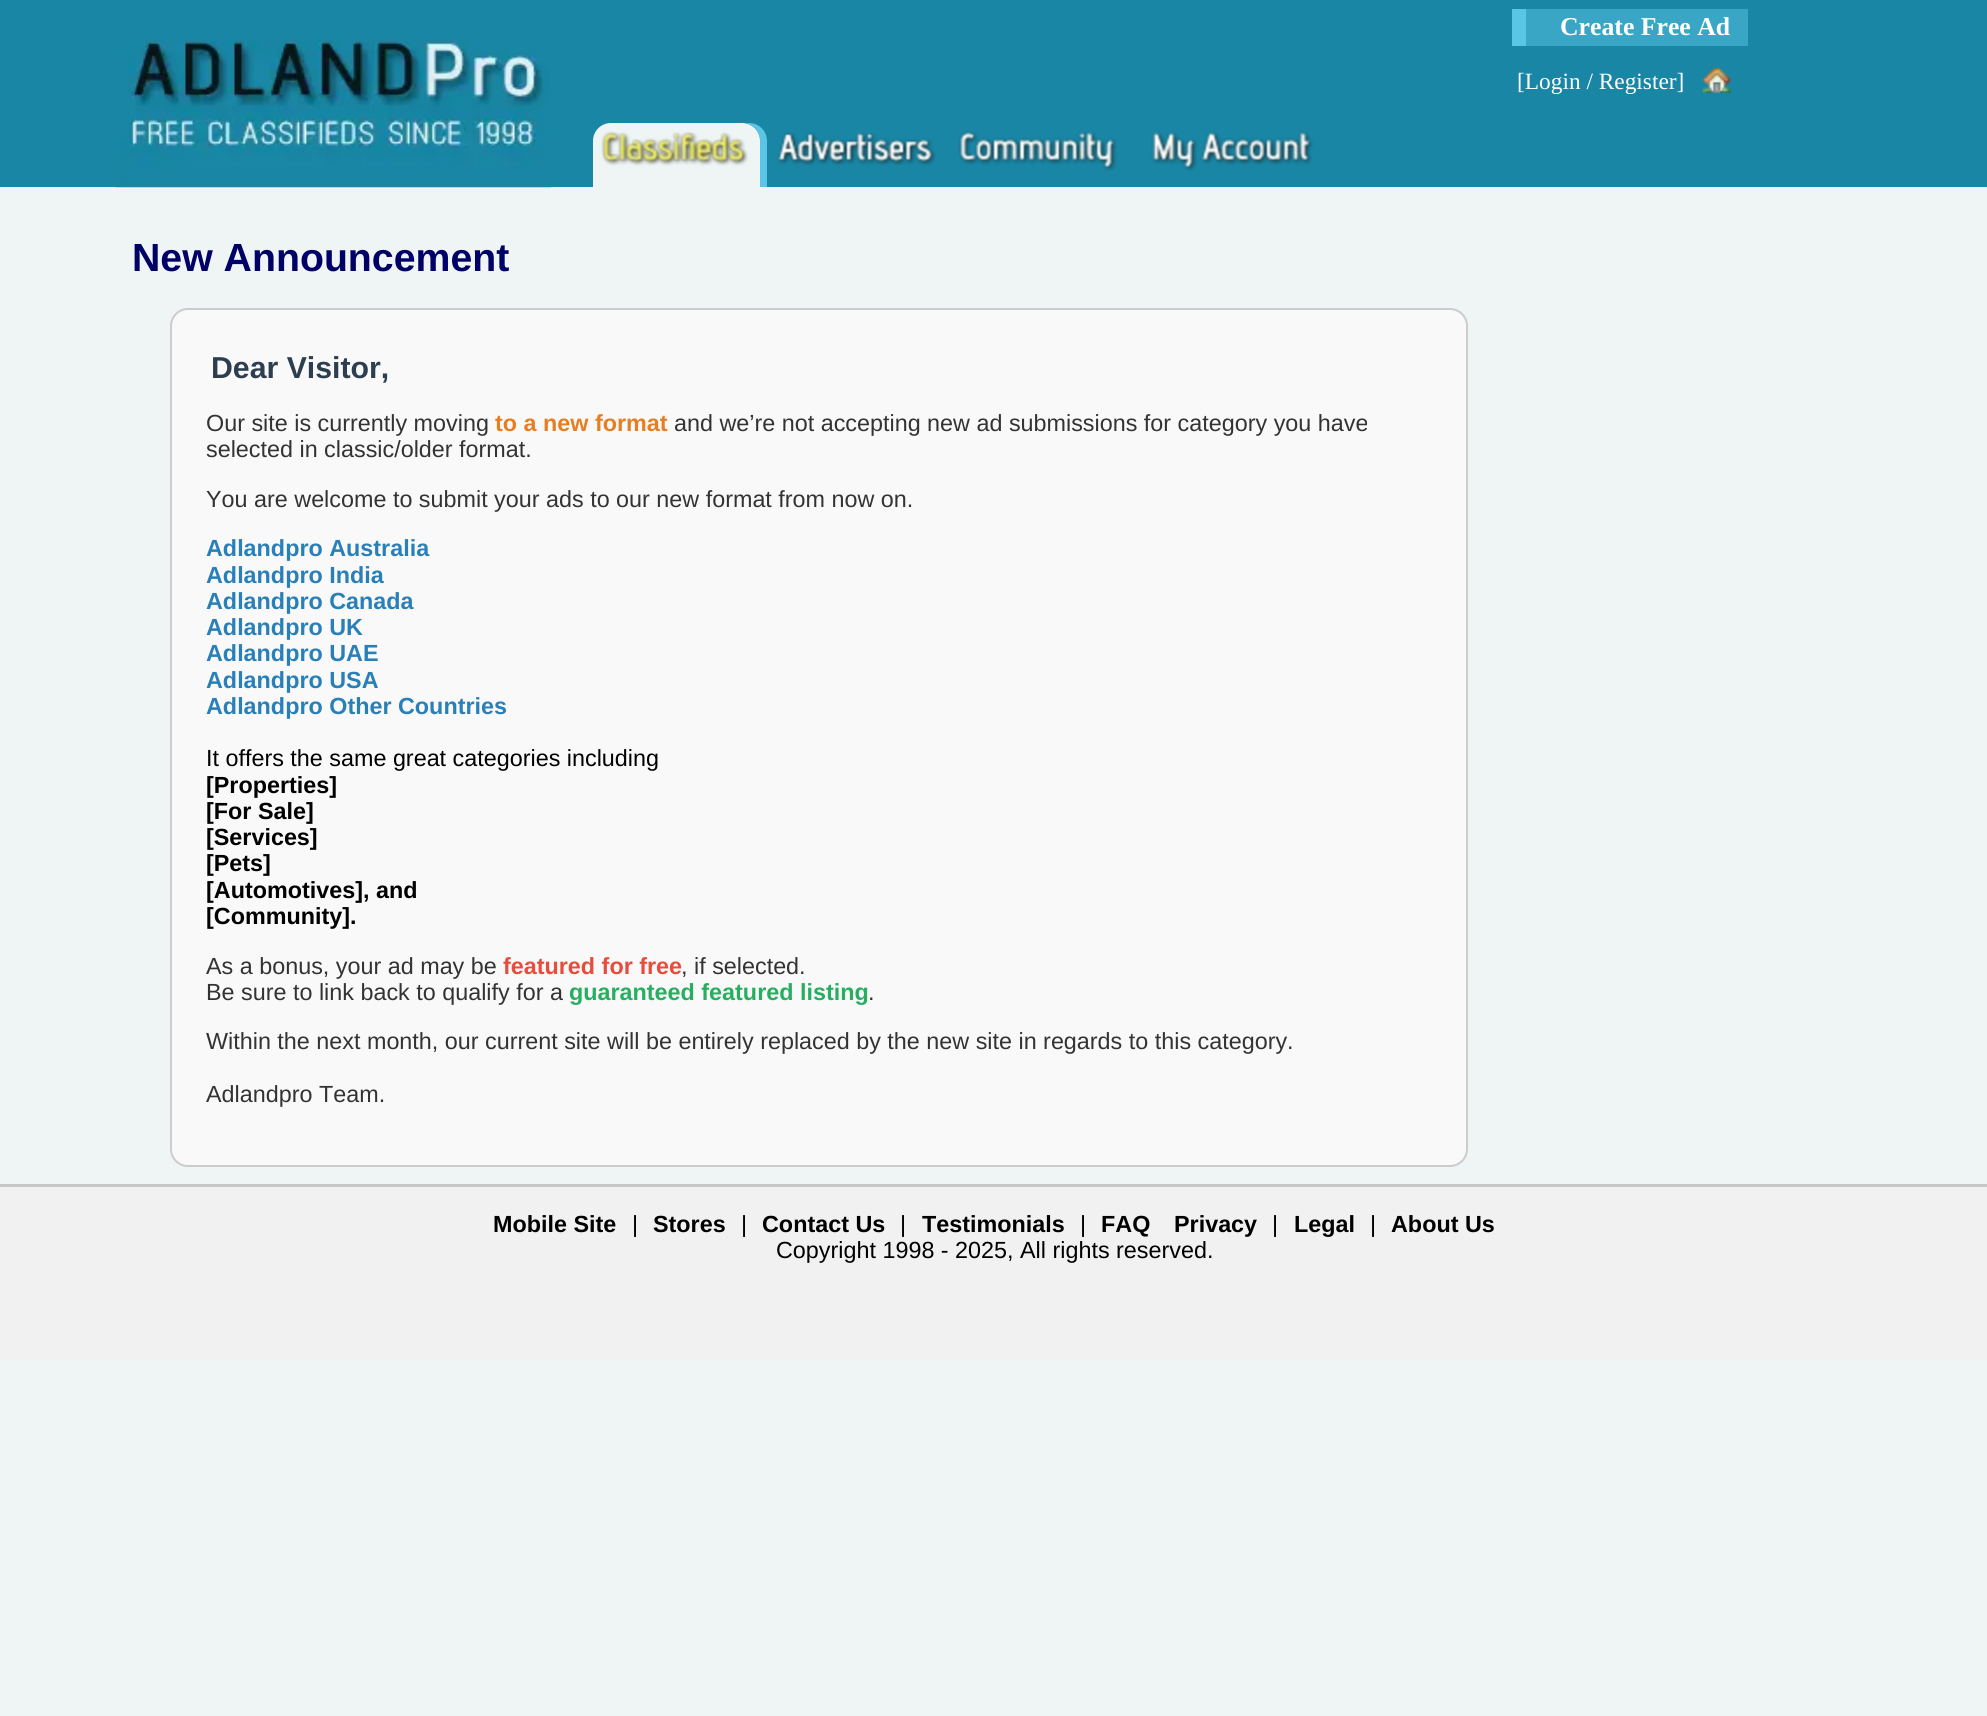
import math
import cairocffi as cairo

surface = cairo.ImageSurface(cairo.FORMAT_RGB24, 1987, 1716)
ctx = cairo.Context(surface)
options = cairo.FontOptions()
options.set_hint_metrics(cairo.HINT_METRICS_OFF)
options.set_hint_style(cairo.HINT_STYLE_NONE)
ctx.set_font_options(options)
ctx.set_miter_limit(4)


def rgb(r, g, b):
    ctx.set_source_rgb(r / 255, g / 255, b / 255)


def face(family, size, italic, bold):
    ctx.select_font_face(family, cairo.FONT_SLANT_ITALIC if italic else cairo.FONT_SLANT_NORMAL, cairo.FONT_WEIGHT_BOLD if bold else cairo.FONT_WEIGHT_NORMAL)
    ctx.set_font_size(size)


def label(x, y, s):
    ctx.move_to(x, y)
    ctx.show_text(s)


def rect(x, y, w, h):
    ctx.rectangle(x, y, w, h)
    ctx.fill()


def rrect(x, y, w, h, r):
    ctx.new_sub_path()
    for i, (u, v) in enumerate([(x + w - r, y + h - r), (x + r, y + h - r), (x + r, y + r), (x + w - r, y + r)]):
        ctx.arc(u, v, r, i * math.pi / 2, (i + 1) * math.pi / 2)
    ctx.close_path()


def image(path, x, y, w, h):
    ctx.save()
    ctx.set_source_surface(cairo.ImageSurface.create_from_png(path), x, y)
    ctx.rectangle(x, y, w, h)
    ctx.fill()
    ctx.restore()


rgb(239, 245, 245)
ctx.paint()
rgb(25, 134, 165)
rect(0, 0, 1987, 187)
image('image0.png', 115, 40, 437, 148)
rgb(57, 166, 197)
rect(1526, 9, 222, 37)
rgb(89, 198, 229)
rect(1512, 9, 14, 37)
face('Liberation Serif', 25.75, 0, 1)
rgb(255, 255, 255)
label(1560, 35, 'Create Free Ad')
face('Liberation Serif', 23.35, 0, 0)
label(1517, 89, '[Login / Register]')
image('image1.png', 1702, 66, 29, 28)
rgb(89, 198, 229)
ctx.new_path()
ctx.move_to(760, 187)
ctx.line_to(767, 187)
ctx.line_to(767, 141)
ctx.curve_to(767, 131, 759, 123, 749, 123)
ctx.line_to(746, 123)
ctx.curve_to(754, 125, 760, 132, 760, 140)
ctx.close_path()
ctx.fill()
rgb(239, 245, 245)
ctx.new_path()
ctx.move_to(611, 123)
ctx.line_to(742, 123)
ctx.curve_to(752, 123, 760, 131, 760, 141)
ctx.line_to(760, 187)
ctx.line_to(593, 187)
ctx.line_to(593, 141)
ctx.curve_to(593, 131, 601, 123, 611, 123)
ctx.close_path()
ctx.fill()
image('image2.png', 601, 131, 147, 35)
image('image3.png', 777, 132, 159, 34)
image('image4.png', 958, 131, 159, 40)
image('image5.png', 1151, 131, 162, 40)
face('Liberation Sans', 39.25, 0, 1)
rgb(0, 0, 102)
label(132, 271, 'New Announcement')
rgb(249, 249, 249)
rrect(171, 309, 1296, 857, 17)
ctx.fill_preserve()
rgb(204, 204, 204)
ctx.stroke()
face('Liberation Sans', 30.25, 0, 1)
rgb(44, 62, 80)
label(211, 378, 'Dear Visitor,')
face('Liberation Sans', 23.35, 0, 0)
rgb(51, 51, 51)
label(206, 431, 'Our site is currently moving')
face('Liberation Sans', 23.35, 0, 1)
rgb(230, 126, 34)
label(495, 431, 'to a new format')
face('Liberation Sans', 23.35, 0, 0)
rgb(51, 51, 51)
label(674, 431, 'and we’re not accepting new ad submissions for category you have')
label(206, 457, 'selected in classic/older format.')
label(206, 507, 'You are welcome to submit your ads to our new format from now on.')
face('Liberation Sans', 23.35, 0, 1)
rgb(41, 128, 185)
label(206, 556, 'Adlandpro Australia')
label(206, 583, 'Adlandpro India')
label(206, 609, 'Adlandpro Canada')
label(206, 635, 'Adlandpro UK')
label(206, 661, 'Adlandpro UAE')
label(206, 688, 'Adlandpro USA')
label(206, 714, 'Adlandpro Other Countries')
face('Liberation Sans', 23.35, 0, 0)
rgb(0, 0, 0)
label(206, 766, 'It offers the same great categories including')
face('Liberation Sans', 23.35, 0, 1)
label(206, 793, '[Properties]')
label(206, 819, '[For Sale]')
label(206, 845, '[Services]')
label(206, 871, '[Pets]')
label(206, 898, '[Automotives], and')
label(206, 924, '[Community].')
face('Liberation Sans', 23.35, 0, 0)
rgb(51, 51, 51)
label(206, 974, 'As a bonus, your ad may be')
face('Liberation Sans', 23.35, 0, 1)
rgb(231, 76, 60)
label(503, 974, 'featured for free')
face('Liberation Sans', 23.35, 0, 0)
rgb(51, 51, 51)
label(681, 974, ', if selected.')
label(206, 1000, 'Be sure to link back to qualify for a')
face('Liberation Sans', 23.35, 0, 1)
rgb(39, 174, 96)
label(569, 1000, 'guaranteed featured listing')
face('Liberation Sans', 23.35, 0, 0)
rgb(51, 51, 51)
label(868, 1000, '.')
label(206, 1049, 'Within the next month, our current site will be entirely replaced by the new site in regards to this category.')
label(206, 1102, 'Adlandpro Team.')
rgb(241, 241, 241)
rect(0, 1187, 1987, 173)
rgb(199, 199, 199)
rect(0, 1184, 1987, 3)
face('Liberation Sans', 23.35, 0, 1)
rgb(0, 0, 0)
label(493, 1232, 'Mobile Site')
face('Liberation Sans', 23.35, 0, 0)
label(632, 1232, '|')
face('Liberation Sans', 23.35, 0, 1)
label(653, 1232, 'Stores')
face('Liberation Sans', 23.35, 0, 0)
label(741, 1232, '|')
face('Liberation Sans', 23.35, 0, 1)
label(762, 1232, 'Contact Us')
face('Liberation Sans', 23.35, 0, 0)
label(900, 1232, '|')
face('Liberation Sans', 23.35, 0, 1)
label(922, 1232, 'Testimonials')
face('Liberation Sans', 23.35, 0, 0)
label(1080, 1232, '|')
face('Liberation Sans', 23.35, 0, 1)
label(1101, 1232, 'FAQ')
label(1174, 1232, 'Privacy')
face('Liberation Sans', 23.35, 0, 0)
label(1272, 1232, '|')
face('Liberation Sans', 23.35, 0, 1)
label(1294, 1232, 'Legal')
face('Liberation Sans', 23.35, 0, 0)
label(1370, 1232, '|')
face('Liberation Sans', 23.35, 0, 1)
label(1391, 1232, 'About Us')
face('Liberation Sans', 23.35, 0, 0)
label(776, 1258, 'Copyright 1998 - 2025, All rights reserved.')
surface.write_to_png('render.png')
